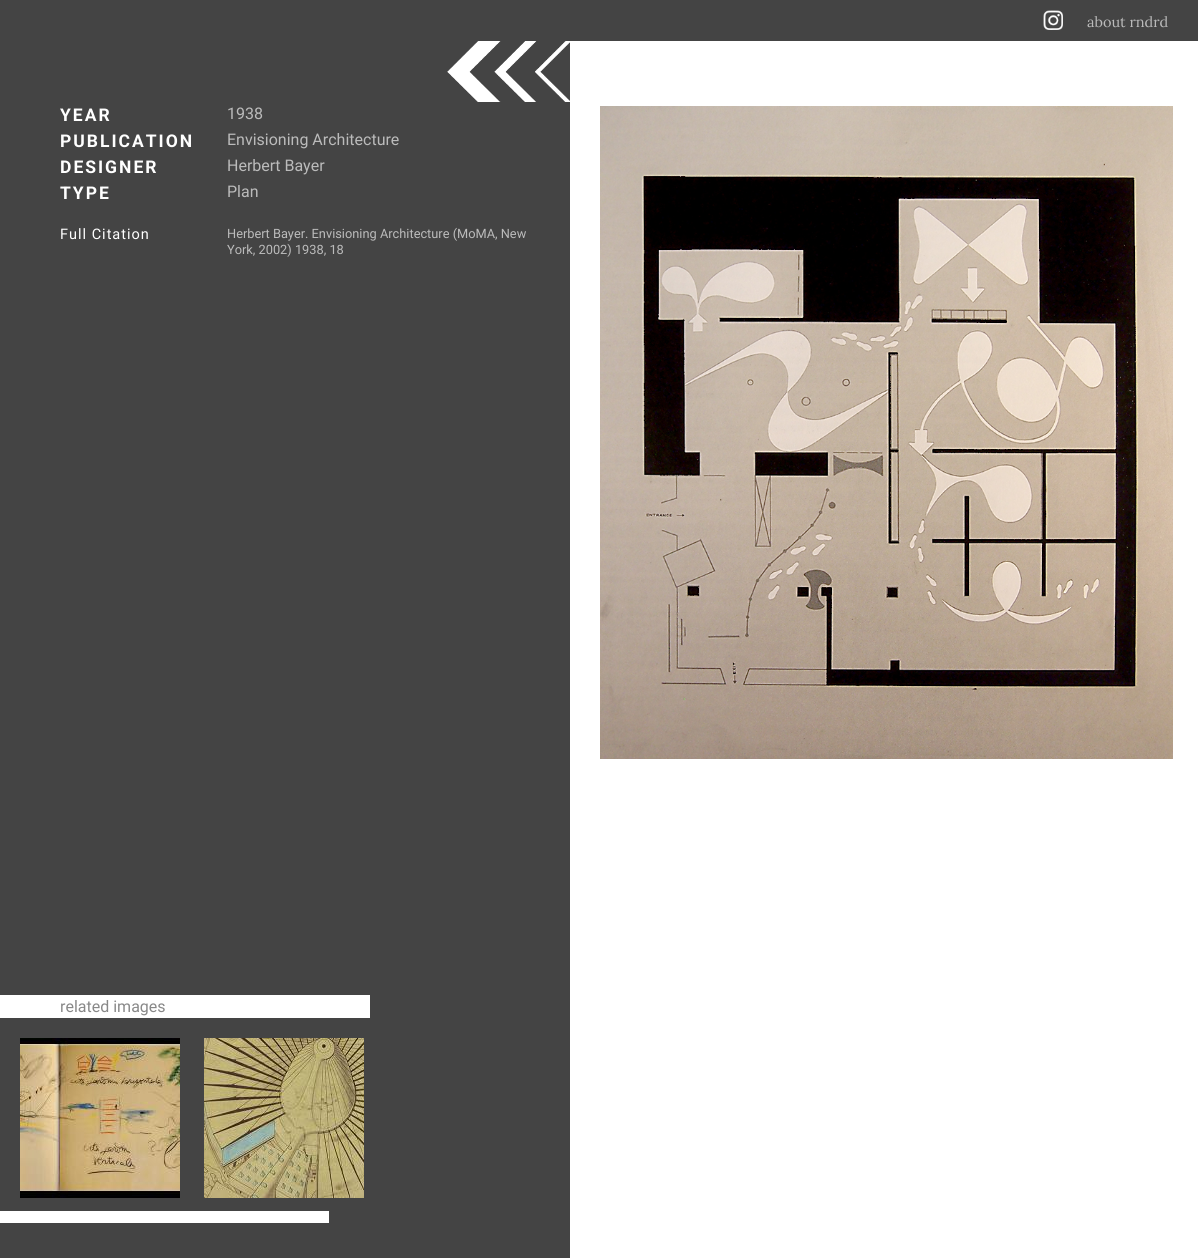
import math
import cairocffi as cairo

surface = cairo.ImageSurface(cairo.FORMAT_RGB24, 1198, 1258)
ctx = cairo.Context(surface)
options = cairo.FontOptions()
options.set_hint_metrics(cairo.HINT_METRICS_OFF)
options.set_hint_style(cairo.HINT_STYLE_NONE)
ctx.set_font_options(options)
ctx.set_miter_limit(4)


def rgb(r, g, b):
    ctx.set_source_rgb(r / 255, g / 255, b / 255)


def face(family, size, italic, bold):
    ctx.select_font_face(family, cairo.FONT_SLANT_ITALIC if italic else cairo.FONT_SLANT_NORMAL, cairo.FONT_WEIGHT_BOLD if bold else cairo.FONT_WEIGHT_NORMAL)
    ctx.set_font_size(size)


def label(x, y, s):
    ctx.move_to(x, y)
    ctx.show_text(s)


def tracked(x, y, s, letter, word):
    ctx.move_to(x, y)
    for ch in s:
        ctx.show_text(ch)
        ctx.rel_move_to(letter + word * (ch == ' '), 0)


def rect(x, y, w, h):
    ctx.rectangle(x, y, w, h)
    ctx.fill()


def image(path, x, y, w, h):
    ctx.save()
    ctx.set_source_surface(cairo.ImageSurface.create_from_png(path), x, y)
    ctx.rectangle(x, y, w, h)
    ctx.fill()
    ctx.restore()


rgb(68, 68, 68)
ctx.paint()
image('image0.png', 1043, 10, 20, 20)
face('Lora', 14.5, 0, 0)
rgb(187, 187, 187)
label(1087, 27, 'about rndrd')
face('Roboto', 17.5, 0, 1)
rgb(255, 255, 255)
tracked(60, 121, 'YEAR', 2, 0)
face('Roboto', 16, 0, 0)
rgb(187, 187, 187)
label(227, 119, '1938')
face('Roboto', 17.5, 0, 1)
rgb(255, 255, 255)
tracked(60, 147, 'PUBLICATION', 2, 0)
face('Roboto', 16, 0, 0)
rgb(187, 187, 187)
label(227, 145, 'Envisioning Architecture')
face('Roboto', 17.5, 0, 1)
rgb(255, 255, 255)
tracked(60, 173, 'DESIGNER', 2, 0)
face('Roboto', 16, 0, 0)
rgb(187, 187, 187)
label(227, 171, 'Herbert Bayer')
face('Roboto', 17.5, 0, 1)
rgb(255, 255, 255)
tracked(60, 199, 'TYPE', 2, 0)
face('Roboto', 16, 0, 0)
rgb(187, 187, 187)
label(227, 197, 'Plan')
face('Roboto', 14.5, 0, 0)
rgb(255, 255, 255)
tracked(60, 239, 'Full Citation', 1, 0)
face('Roboto', 12.8, 0, 0)
rgb(187, 187, 187)
label(227, 238, 'Herbert Bayer. Envisioning Architecture (MoMA, New')
label(227, 254, 'York, 2002) 1938, 18')
rgb(255, 255, 255)
rect(0, 995, 370, 23)
face('Roboto', 16, 0, 0)
rgb(136, 136, 136)
label(60, 1012, 'related images')
image('image1.png', 20, 1038, 160, 160)
image('image2.png', 204, 1038, 160, 160)
rgb(255, 255, 255)
rect(0, 1211, 329, 12)
rect(570, 41, 628, 1217)
image('image3.png', 447, 41, 123, 61)
image('image4.png', 600, 106, 573, 653)
surface.write_to_png('render.png')
